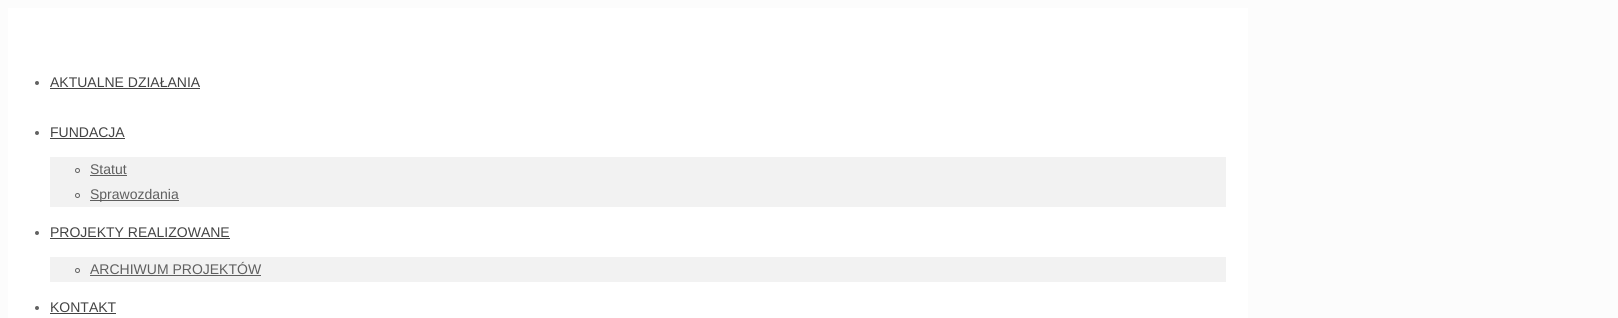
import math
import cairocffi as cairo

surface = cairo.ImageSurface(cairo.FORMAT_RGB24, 1618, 318)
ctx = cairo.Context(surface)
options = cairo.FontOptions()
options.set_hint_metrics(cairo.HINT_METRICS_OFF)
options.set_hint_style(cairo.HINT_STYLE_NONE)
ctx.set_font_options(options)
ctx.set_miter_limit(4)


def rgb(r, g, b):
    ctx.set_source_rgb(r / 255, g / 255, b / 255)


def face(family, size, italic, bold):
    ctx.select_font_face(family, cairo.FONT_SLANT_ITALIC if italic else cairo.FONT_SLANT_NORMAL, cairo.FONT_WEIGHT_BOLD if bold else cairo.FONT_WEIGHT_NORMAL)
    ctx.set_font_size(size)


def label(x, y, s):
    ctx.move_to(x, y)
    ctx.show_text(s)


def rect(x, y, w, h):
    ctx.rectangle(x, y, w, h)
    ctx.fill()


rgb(252, 252, 252)
ctx.paint()
rgb(255, 255, 255)
rect(8, 8, 1240, 310)
rgb(98, 98, 98)
ctx.arc(37, 83, 2, 0, 2 * math.pi)
ctx.fill()
face('Liberation Sans', 14, 0, 0)
rgb(68, 68, 68)
label(50, 87, 'AKTUALNE DZIAŁANIA')
rect(50, 88, 150, 1)
rgb(98, 98, 98)
ctx.new_path()
ctx.arc(37, 133, 2, 0, 2 * math.pi)
ctx.fill()
rgb(68, 68, 68)
label(50, 137, 'FUNDACJA')
rect(50, 138, 75, 1)
rgb(242, 242, 242)
rect(50, 157, 1176, 50)
ctx.new_path()
ctx.arc(77.5, 170.5, 2, 0, 2 * math.pi)
rgb(98, 98, 98)
ctx.set_line_width(1)
ctx.stroke()
rgb(95, 95, 95)
label(90, 174, 'Statut')
rect(90, 175, 37, 1)
ctx.new_path()
ctx.arc(77.5, 195.5, 2, 0, 2 * math.pi)
rgb(98, 98, 98)
ctx.stroke()
rgb(95, 95, 95)
rect(90, 200, 89, 1)
label(90, 199, 'Sprawozdania')
rgb(98, 98, 98)
ctx.new_path()
ctx.arc(37, 233, 2, 0, 2 * math.pi)
ctx.fill()
rgb(68, 68, 68)
label(50, 237, 'PROJEKTY REALIZOWANE')
rect(50, 238, 180, 1)
rgb(242, 242, 242)
rect(50, 257, 1176, 25)
ctx.new_path()
ctx.arc(77.5, 270.5, 2, 0, 2 * math.pi)
rgb(98, 98, 98)
ctx.stroke()
rgb(95, 95, 95)
label(90, 274, 'ARCHIWUM PROJEKTÓW')
rect(90, 275, 171, 1)
rgb(98, 98, 98)
ctx.new_path()
ctx.arc(37, 308, 2, 0, 2 * math.pi)
ctx.fill()
rgb(68, 68, 68)
label(50, 312, 'KONTAKT')
rect(50, 313, 66, 1)
surface.write_to_png('render.png')
